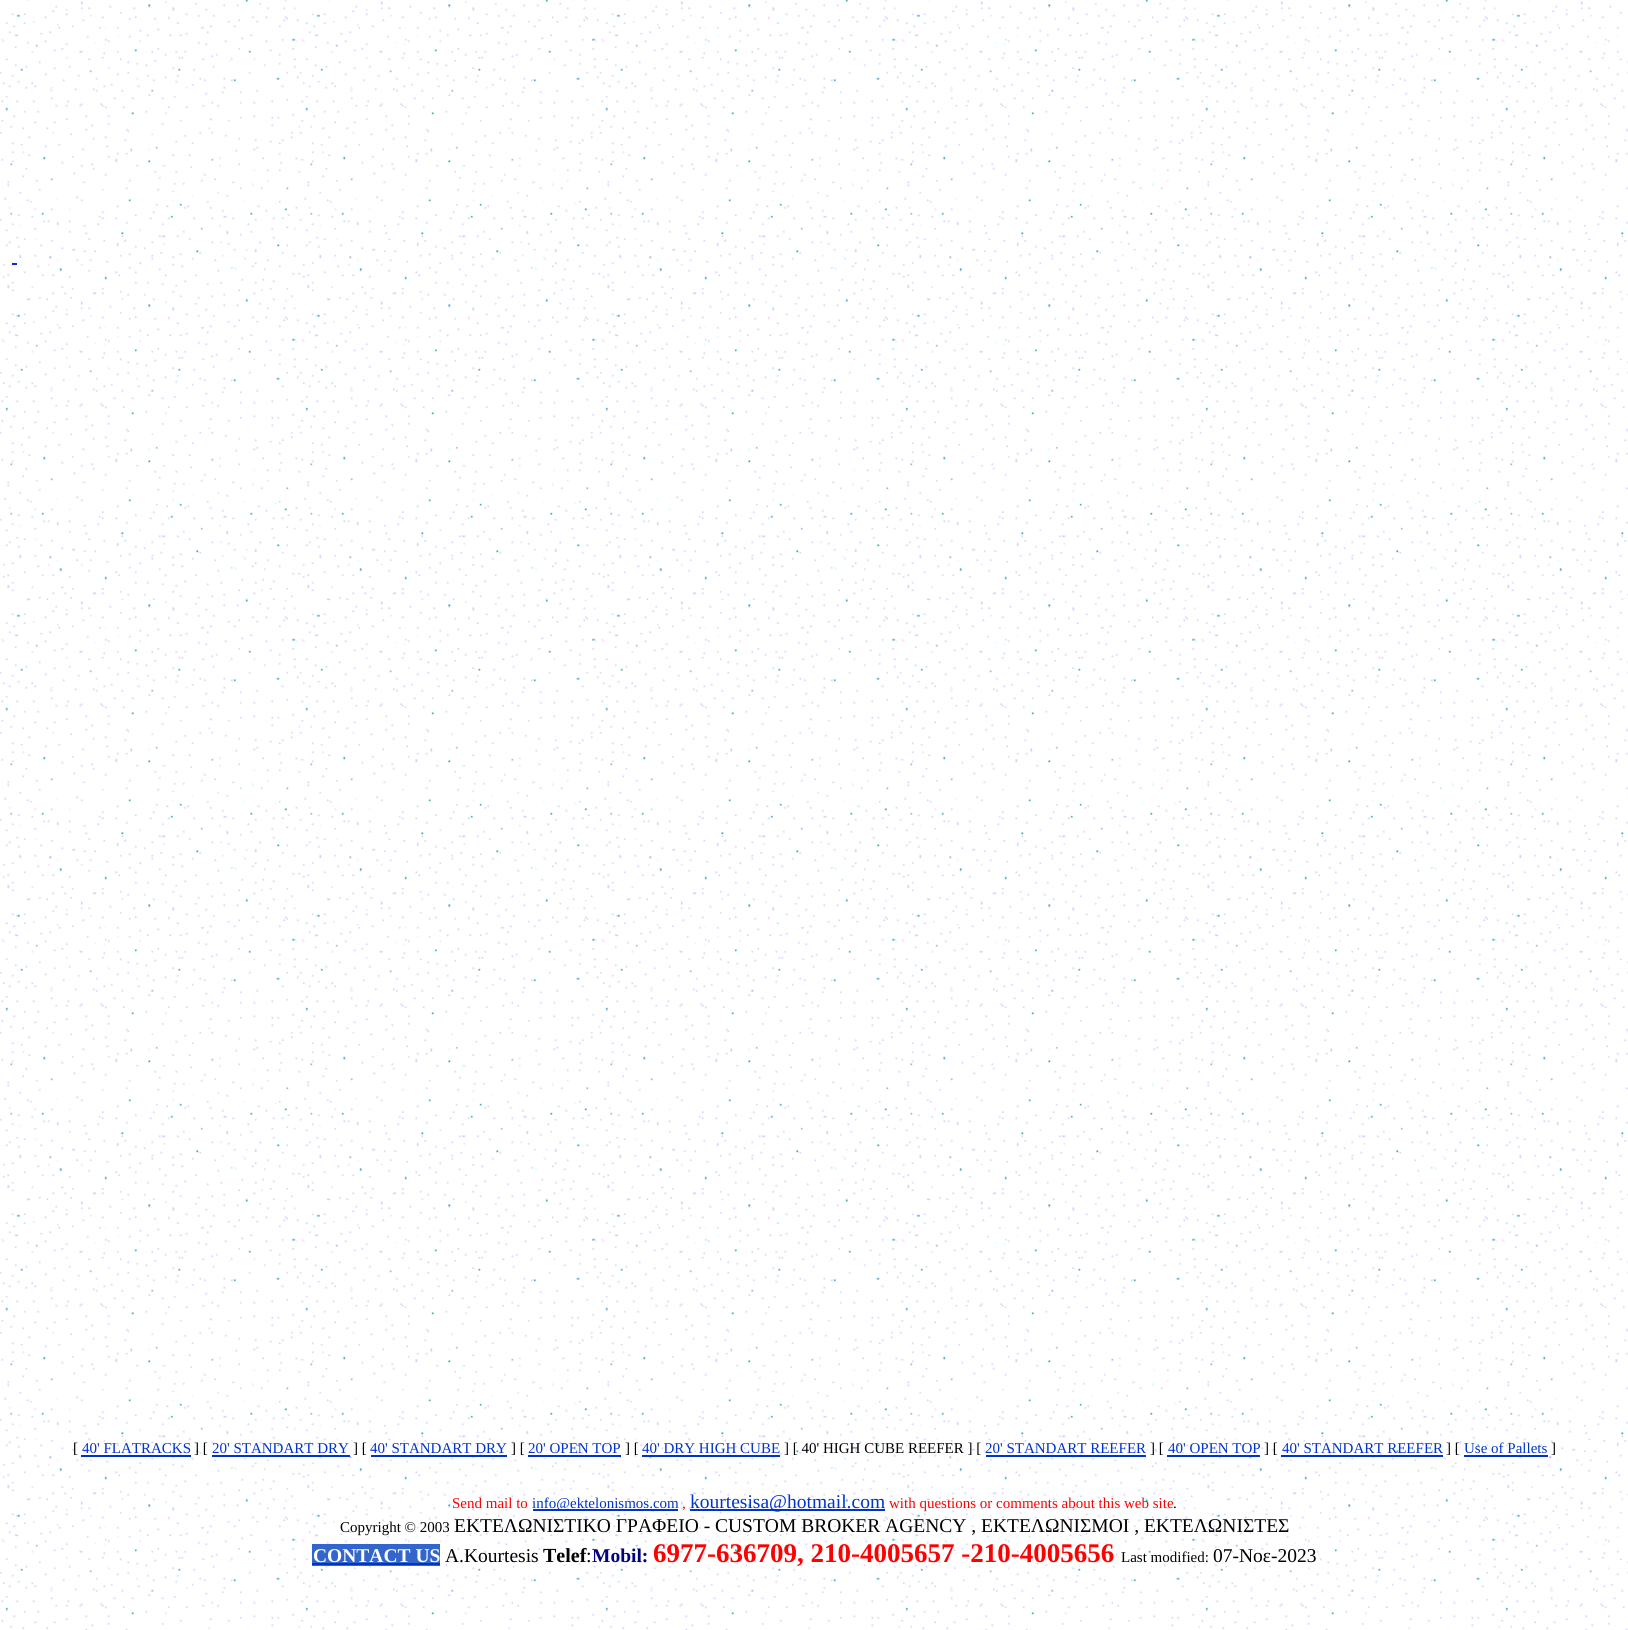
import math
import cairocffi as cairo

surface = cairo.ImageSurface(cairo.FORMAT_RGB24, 1628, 1630)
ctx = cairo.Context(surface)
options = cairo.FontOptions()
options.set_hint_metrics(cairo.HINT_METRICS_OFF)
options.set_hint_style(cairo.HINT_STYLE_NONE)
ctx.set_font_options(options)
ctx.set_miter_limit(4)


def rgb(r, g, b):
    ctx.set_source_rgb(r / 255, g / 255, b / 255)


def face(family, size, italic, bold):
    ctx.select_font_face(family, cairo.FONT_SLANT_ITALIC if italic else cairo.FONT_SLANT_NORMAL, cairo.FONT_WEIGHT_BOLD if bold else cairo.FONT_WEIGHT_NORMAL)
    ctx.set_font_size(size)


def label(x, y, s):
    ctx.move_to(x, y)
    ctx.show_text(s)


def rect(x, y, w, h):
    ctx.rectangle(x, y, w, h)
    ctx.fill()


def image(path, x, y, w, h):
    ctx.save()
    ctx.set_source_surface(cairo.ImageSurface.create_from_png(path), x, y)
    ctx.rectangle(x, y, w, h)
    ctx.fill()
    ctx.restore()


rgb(255, 255, 255)
ctx.paint()
image('image0.png', 0, 0, 1628, 1630)
rgb(0, 51, 204)
rect(12, 263, 5, 2)
face('Liberation Serif', 15, 0, 0)
rgb(0, 0, 0)
label(73, 1453, '[')
rgb(0, 51, 204)
label(82, 1453, '40\' FLATRACKS')
rect(81, 1455, 110, 2)
rgb(0, 0, 0)
label(194, 1453, '] [')
rgb(0, 51, 204)
label(212, 1453, '20\' STANDART DRY')
rect(212, 1455, 138, 2)
rgb(0, 0, 0)
label(353, 1453, '] [')
rgb(0, 51, 204)
label(370, 1453, '40\' STANDART DRY')
rect(371, 1455, 136, 2)
rgb(0, 0, 0)
label(511, 1453, '] [')
rgb(0, 51, 204)
label(528, 1453, '20\' OPEN TOP')
rect(528, 1455, 93, 2)
rgb(0, 0, 0)
label(625, 1453, '] [')
rgb(0, 51, 204)
label(642, 1453, '40\' DRY HIGH CUBE')
rect(642, 1455, 138, 2)
rgb(0, 0, 0)
label(784, 1453, '] [ 40\' HIGH CUBE REEFER ] [')
rgb(0, 51, 204)
label(985, 1453, '20\' STANDART REEFER')
rect(986, 1455, 160, 2)
rgb(0, 0, 0)
label(1150, 1453, '] [')
rgb(0, 51, 204)
label(1168, 1453, '40\' OPEN TOP')
rect(1167, 1455, 93, 2)
rgb(0, 0, 0)
label(1264, 1453, '] [')
rgb(0, 51, 204)
label(1282, 1453, '40\' STANDART REEFER')
rect(1281, 1455, 162, 2)
rgb(0, 0, 0)
label(1446, 1453, '] [')
rgb(0, 51, 204)
label(1464, 1453, 'Use of Pallets')
rect(1464, 1455, 84, 2)
rgb(0, 0, 0)
label(1551, 1453, ']')
rgb(255, 0, 0)
label(452, 1508, 'Send mail to')
rgb(0, 51, 204)
rect(533, 1509, 145, 2)
label(532, 1508, 'info@ektelonismos.com')
rgb(255, 0, 0)
label(682, 1508, ',')
rgb(0, 51, 204)
rect(690, 1509, 195, 2)
face('Liberation Serif', 19.5, 0, 0)
label(690, 1508, 'kourtesisa@hotmail.com')
face('Liberation Serif', 15, 0, 0)
rgb(255, 0, 0)
label(889, 1508, 'with questions or comments about this web site')
rgb(0, 0, 0)
label(1173, 1508, '.')
label(340, 1532, 'Copyright © 2003')
face('Liberation Serif', 19.5, 0, 0)
label(454, 1532, 'ΕΚΤΕΛΩΝΙΣΤΙΚΟ ΓΡΑΦΕΙΟ - CUSTOM BROKER AGENCY , ΕΚΤΕΛΩΝΙΣΜΟΙ , ΕΚΤΕΛΩΝΙΣΤΕΣ')
rgb(51, 102, 204)
rect(312, 1544, 128, 22)
face('Liberation Serif', 19.5, 0, 1)
rgb(255, 255, 255)
label(313, 1562, 'CONTACT US')
rgb(0, 51, 204)
rect(312, 1563, 128, 2)
face('Liberation Serif', 19.5, 0, 0)
rgb(0, 0, 0)
label(445, 1562, 'A.Kourtesis')
face('Liberation Serif', 20, 0, 1)
label(543, 1562, 'Telef')
face('Liberation Serif', 20, 0, 0)
label(586, 1562, ':')
face('Liberation Serif', 19.5, 0, 1)
rgb(0, 0, 128)
label(592, 1562, 'Mobil:')
face('Liberation Serif', 27, 0, 1)
rgb(255, 0, 0)
label(653, 1562, '6977-636709, 210-4005657 -210-4005656')
face('Liberation Serif', 15, 0, 0)
rgb(0, 0, 0)
label(1121, 1562, 'Last modified:')
face('Liberation Serif', 19.5, 0, 0)
label(1213, 1562, '07-Νοε-2023')
surface.write_to_png('render.png')
